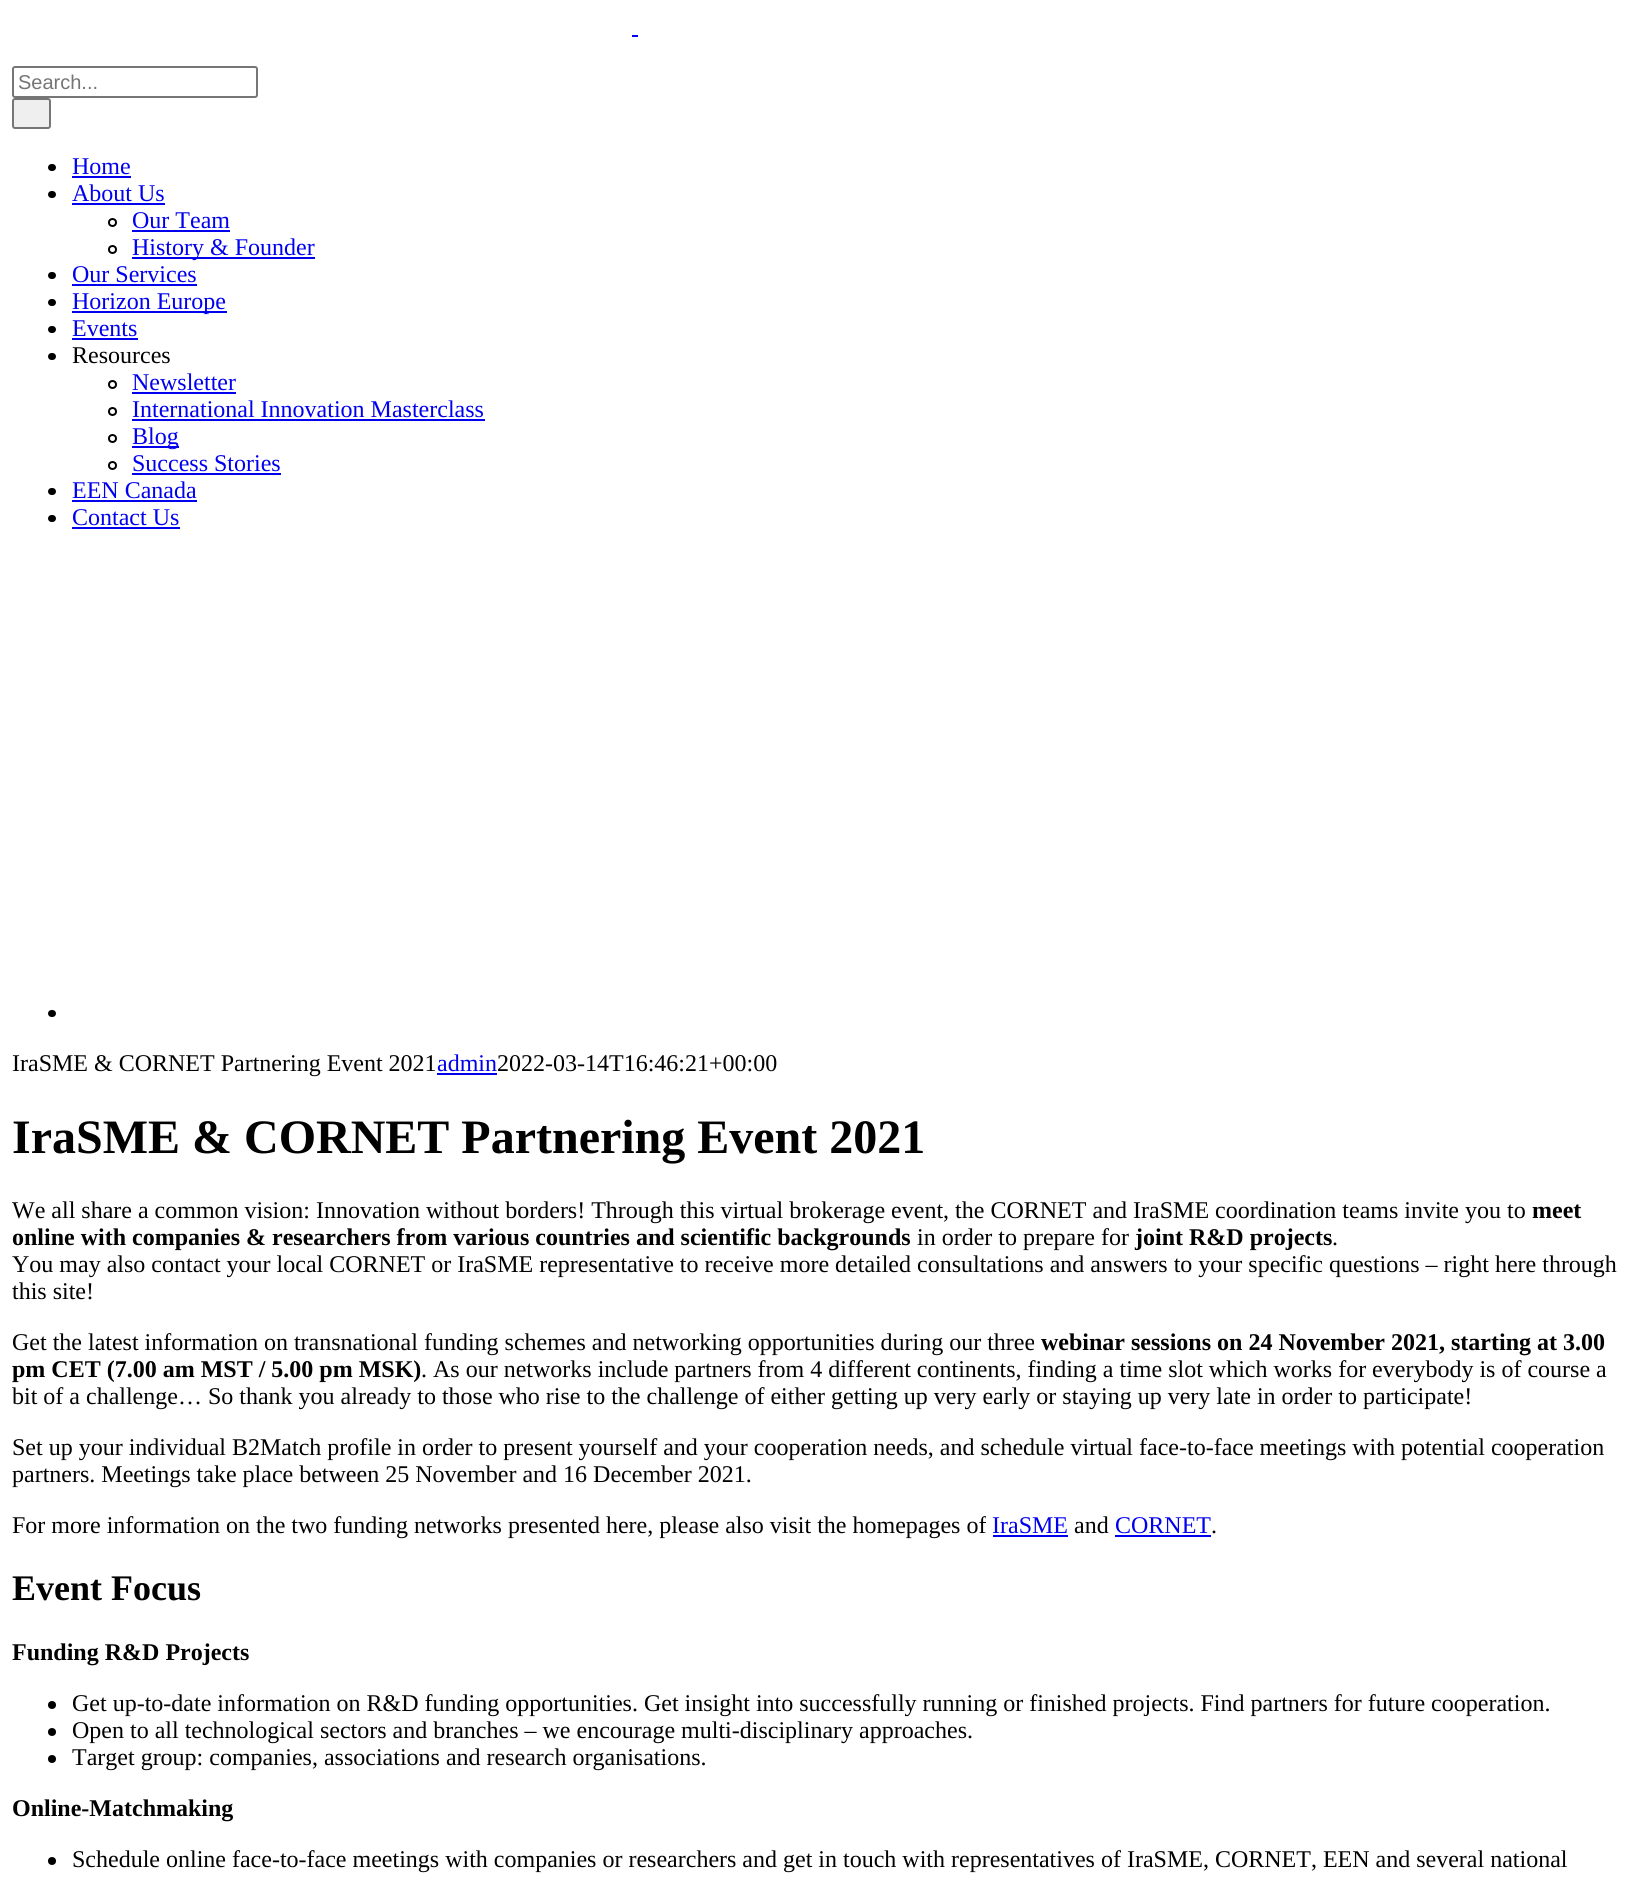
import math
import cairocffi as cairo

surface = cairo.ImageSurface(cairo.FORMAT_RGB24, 1649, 1887)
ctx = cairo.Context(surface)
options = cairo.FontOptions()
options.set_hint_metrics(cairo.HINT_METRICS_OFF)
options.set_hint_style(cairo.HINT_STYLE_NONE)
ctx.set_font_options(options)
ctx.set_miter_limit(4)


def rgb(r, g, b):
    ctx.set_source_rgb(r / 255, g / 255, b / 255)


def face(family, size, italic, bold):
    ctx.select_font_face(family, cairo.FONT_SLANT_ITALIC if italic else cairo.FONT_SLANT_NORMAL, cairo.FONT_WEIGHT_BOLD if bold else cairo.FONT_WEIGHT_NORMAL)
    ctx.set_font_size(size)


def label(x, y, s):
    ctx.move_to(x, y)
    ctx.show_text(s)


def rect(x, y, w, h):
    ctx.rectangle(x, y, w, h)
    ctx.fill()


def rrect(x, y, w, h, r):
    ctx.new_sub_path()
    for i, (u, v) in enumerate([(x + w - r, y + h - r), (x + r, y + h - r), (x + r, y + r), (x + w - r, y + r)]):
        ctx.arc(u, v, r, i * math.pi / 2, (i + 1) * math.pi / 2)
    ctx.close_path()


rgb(255, 255, 255)
ctx.paint()
rgb(0, 0, 238)
rect(632, 35, 6, 2)
rrect(13, 67, 244, 30, 2)
rgb(118, 118, 118)
ctx.stroke()
face('Liberation Sans', 20, 0, 0)
rgb(117, 117, 117)
label(18, 89, 'Search...')
rgb(239, 239, 239)
rrect(13, 99, 37, 29, 2)
ctx.fill_preserve()
rgb(118, 118, 118)
ctx.stroke()
rgb(0, 0, 0)
rrect(48, 164, 8, 7, 3.5)
ctx.fill()
face('Liberation Serif', 24, 0, 0)
rgb(0, 0, 238)
label(72, 174, 'Home')
rect(72, 176, 59, 2)
rgb(0, 0, 0)
rrect(48, 191, 8, 7, 3.5)
ctx.fill()
rgb(0, 0, 238)
label(72, 201, 'About Us')
rect(72, 203, 93, 2)
ctx.new_path()
ctx.arc(112.5, 222.5, 3.5, 0, 2 * math.pi)
rgb(0, 0, 0)
ctx.stroke()
rgb(0, 0, 238)
label(132, 228, 'Our Team')
rect(132, 230, 98, 2)
ctx.new_path()
ctx.arc(112.5, 249.5, 3.5, 0, 2 * math.pi)
rgb(0, 0, 0)
ctx.stroke()
rgb(0, 0, 238)
rect(132, 257, 183, 2)
label(132, 255, 'History & Founder')
rgb(0, 0, 0)
rrect(48, 272, 8, 7, 3.5)
ctx.fill()
rgb(0, 0, 238)
label(72, 282, 'Our Services')
rect(72, 284, 125, 2)
rgb(0, 0, 0)
rrect(48, 299, 8, 7, 3.5)
ctx.fill()
rgb(0, 0, 238)
rect(72, 311, 155, 2)
label(72, 309, 'Horizon Europe')
rgb(0, 0, 0)
rrect(48, 326, 8, 7, 3.5)
ctx.fill()
rgb(0, 0, 238)
label(72, 336, 'Events')
rect(72, 338, 66, 2)
rgb(0, 0, 0)
rrect(48, 353, 8, 7, 3.5)
ctx.fill()
label(72, 363, 'Resources')
ctx.new_path()
ctx.arc(112.5, 384.5, 3.5, 0, 2 * math.pi)
ctx.stroke()
rgb(0, 0, 238)
label(132, 390, 'Newsletter')
rect(132, 392, 104, 2)
ctx.new_path()
ctx.arc(112.5, 411.5, 3.5, 0, 2 * math.pi)
rgb(0, 0, 0)
ctx.stroke()
rgb(0, 0, 238)
label(132, 417, 'International Innovation Masterclass')
rect(132, 419, 353, 2)
ctx.new_path()
ctx.arc(112.5, 438.5, 3.5, 0, 2 * math.pi)
rgb(0, 0, 0)
ctx.stroke()
rgb(0, 0, 238)
rect(132, 446, 47, 2)
label(132, 444, 'Blog')
ctx.new_path()
ctx.arc(112.5, 465.5, 3.5, 0, 2 * math.pi)
rgb(0, 0, 0)
ctx.stroke()
rgb(0, 0, 238)
label(132, 471, 'Success Stories')
rect(132, 473, 149, 2)
rgb(0, 0, 0)
rrect(48, 488, 8, 7, 3.5)
ctx.fill()
rgb(0, 0, 238)
label(72, 498, 'EEN Canada')
rect(72, 500, 125, 2)
rgb(0, 0, 0)
rrect(48, 515, 8, 7, 3.5)
ctx.fill()
rgb(0, 0, 238)
label(72, 525, 'Contact Us')
rect(72, 527, 108, 2)
rgb(0, 0, 0)
rrect(48, 1010, 8, 7, 3.5)
ctx.fill()
label(12, 1071, 'IraSME & CORNET Partnering Event 2021')
rgb(0, 0, 238)
label(437, 1071, 'admin')
rect(437, 1073, 60, 2)
rgb(0, 0, 0)
label(497, 1071, '2022-03-14T16:46:21+00:00')
face('Liberation Serif', 48, 0, 1)
label(12, 1153, 'IraSME & CORNET Partnering Event 2021')
face('Liberation Serif', 24, 0, 0)
label(12, 1218, 'We all share a common vision: Innovation without borders! Through this virtual brokerage event, the CORNET and IraSME coordination teams invite you to')
face('Liberation Serif', 24, 0, 1)
label(1532, 1218, 'meet')
label(12, 1245, 'online with companies & researchers from various countries and scientific backgrounds')
face('Liberation Serif', 24, 0, 0)
label(917, 1245, 'in order to prepare for')
face('Liberation Serif', 24, 0, 1)
label(1135, 1245, 'joint R&D projects')
face('Liberation Serif', 24, 0, 0)
label(1332, 1245, '.')
label(12, 1272, 'You may also contact your local CORNET or IraSME representative to receive more detailed consultations and answers to your specific questions – right here through')
label(12, 1299, 'this site!')
label(12, 1350, 'Get the latest information on transnational funding schemes and networking opportunities during our three')
face('Liberation Serif', 24, 0, 1)
label(1041, 1350, 'webinar sessions on 24 November 2021, starting at 3.00')
label(12, 1377, 'pm CET (7.00 am MST / 5.00 pm MSK)')
face('Liberation Serif', 24, 0, 0)
label(421, 1377, '. As our networks include partners from 4 different continents, finding a time slot which works for everybody is of course a')
label(12, 1404, 'bit of a challenge… So thank you already to those who rise to the challenge of either getting up very early or staying up very late in order to participate!')
label(12, 1455, 'Set up your individual B2Match profile in order to present yourself and your cooperation needs, and schedule virtual face-to-face meetings with potential cooperation')
label(12, 1482, 'partners. Meetings take place between 25 November and 16 December 2021.')
label(12, 1533, 'For more information on the two funding networks presented here, please also visit the homepages of')
rgb(0, 0, 238)
label(992, 1533, 'IraSME')
rect(993, 1535, 75, 2)
rgb(0, 0, 0)
label(1074, 1533, 'and')
rgb(0, 0, 238)
label(1115, 1533, 'CORNET')
rect(1115, 1535, 96, 2)
rgb(0, 0, 0)
label(1211, 1533, '.')
face('Liberation Serif', 36, 0, 1)
label(12, 1600, 'Event Focus')
face('Liberation Serif', 24, 0, 1)
label(12, 1660, 'Funding R&D Projects')
ctx.new_path()
ctx.arc(52, 1705, 4, 0, 2 * math.pi)
ctx.fill()
face('Liberation Serif', 24, 0, 0)
label(72, 1711, 'Get up-to-date information on R&D funding opportunities. Get insight into successfully running or finished projects. Find partners for future cooperation.')
ctx.new_path()
ctx.arc(52, 1732, 4, 0, 2 * math.pi)
ctx.fill()
label(72, 1738, 'Open to all technological sectors and branches – we encourage multi-disciplinary approaches.')
ctx.new_path()
ctx.arc(52, 1759, 4, 0, 2 * math.pi)
ctx.fill()
label(72, 1765, 'Target group: companies, associations and research organisations.')
face('Liberation Serif', 24, 0, 1)
label(12, 1816, 'Online-Matchmaking')
ctx.new_path()
ctx.arc(52, 1861, 4, 0, 2 * math.pi)
ctx.fill()
face('Liberation Serif', 24, 0, 0)
label(72, 1867, 'Schedule online face-to-face meetings with companies or researchers and get in touch with representatives of IraSME, CORNET, EEN and several national')
surface.write_to_png('render.png')
